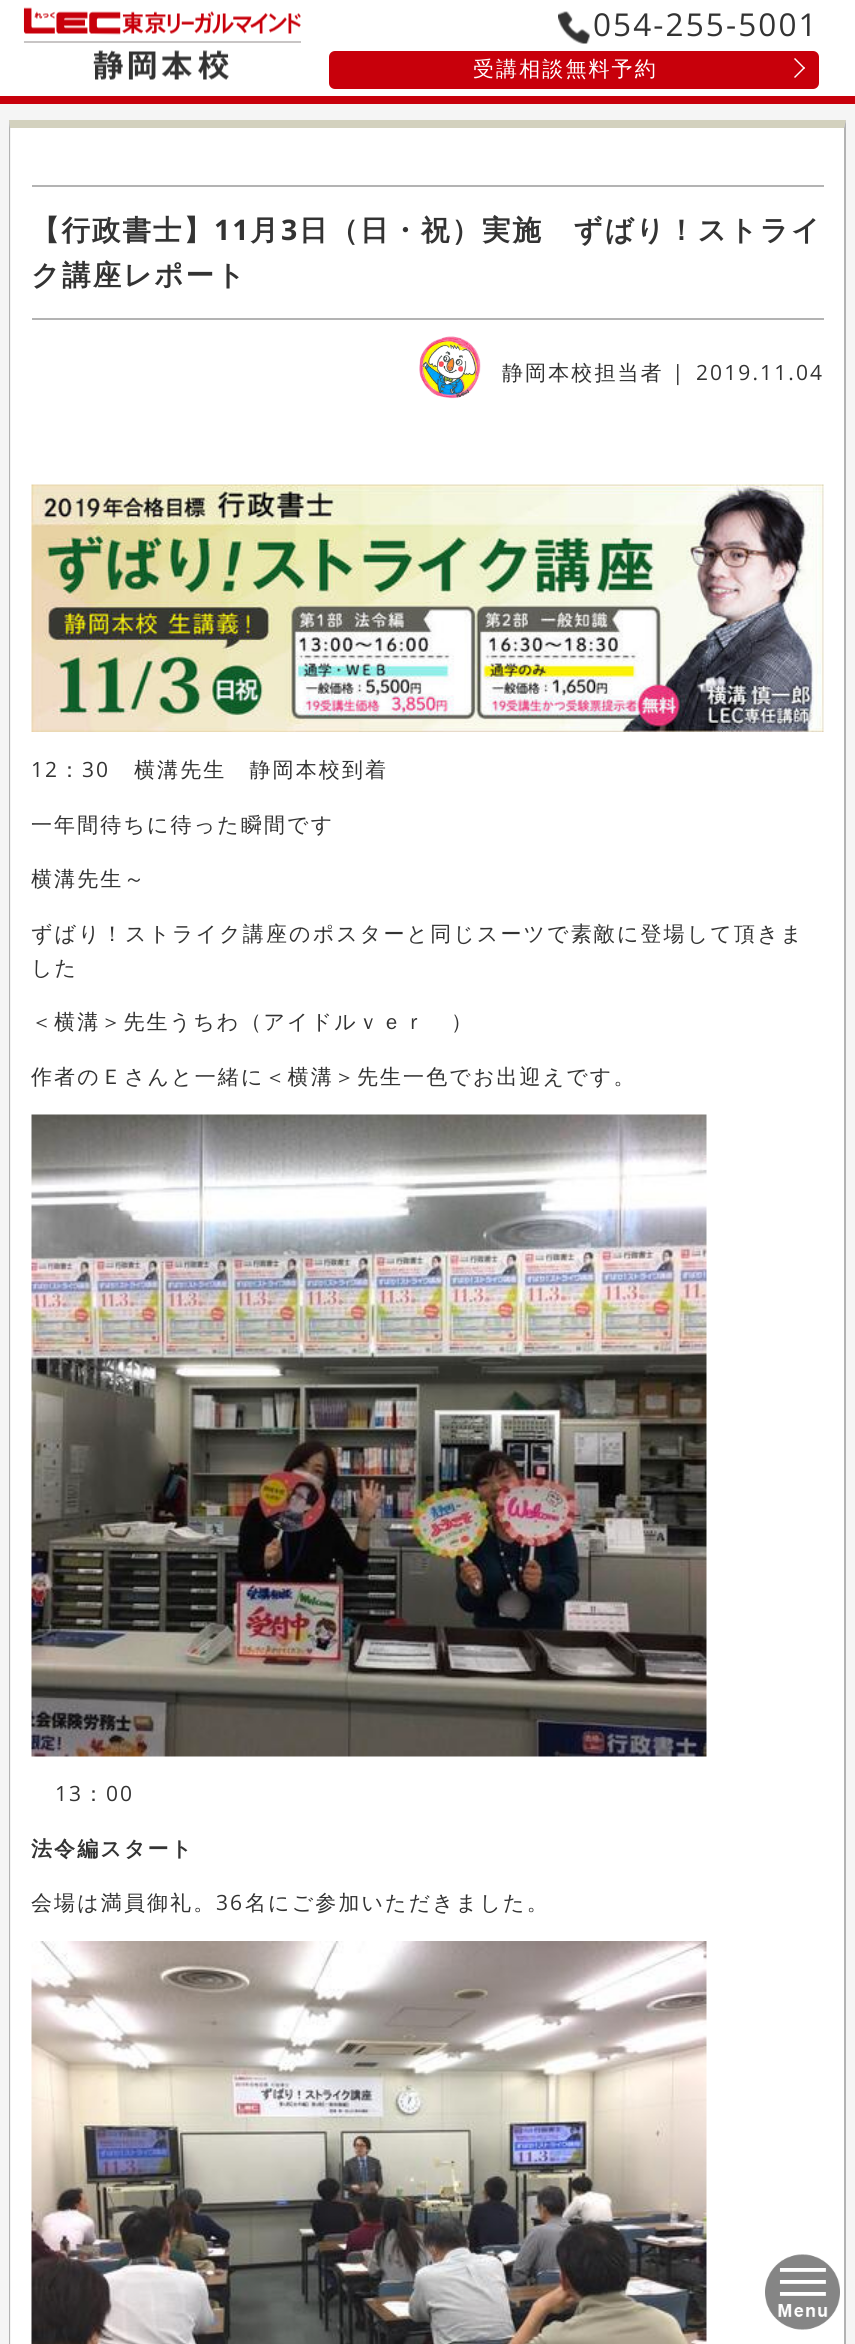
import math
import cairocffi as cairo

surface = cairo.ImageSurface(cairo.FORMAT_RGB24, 855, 2344)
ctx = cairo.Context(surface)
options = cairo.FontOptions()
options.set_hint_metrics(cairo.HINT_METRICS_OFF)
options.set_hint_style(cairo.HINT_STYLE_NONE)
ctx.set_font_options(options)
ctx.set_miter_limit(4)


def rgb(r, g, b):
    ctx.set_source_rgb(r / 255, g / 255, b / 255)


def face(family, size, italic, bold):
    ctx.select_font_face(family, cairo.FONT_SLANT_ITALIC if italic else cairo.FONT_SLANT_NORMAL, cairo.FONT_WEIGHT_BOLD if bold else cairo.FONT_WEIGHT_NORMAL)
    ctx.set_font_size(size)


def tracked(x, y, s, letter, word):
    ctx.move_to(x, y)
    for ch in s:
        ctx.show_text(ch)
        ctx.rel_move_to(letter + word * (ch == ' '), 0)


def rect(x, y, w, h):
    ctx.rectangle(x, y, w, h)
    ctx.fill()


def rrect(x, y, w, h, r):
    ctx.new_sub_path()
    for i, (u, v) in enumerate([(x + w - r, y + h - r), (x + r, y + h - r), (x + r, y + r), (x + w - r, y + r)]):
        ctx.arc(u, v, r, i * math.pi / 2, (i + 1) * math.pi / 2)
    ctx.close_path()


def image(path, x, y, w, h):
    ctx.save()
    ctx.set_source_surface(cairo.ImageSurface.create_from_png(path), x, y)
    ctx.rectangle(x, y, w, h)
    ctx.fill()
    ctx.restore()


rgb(245, 245, 245)
ctx.paint()
rgb(255, 255, 255)
rect(0, 0, 855, 96)
rgb(200, 0, 11)
rect(0, 96, 855, 8)
image('image0.png', 23, 7, 278, 73)
image('image1.png', 558, 11, 32, 33)
face('Open Sans', 31.5, 0, 0)
rgb(51, 51, 51)
tracked(593, 36, '054-255-5001', 2.1, 0)
rgb(200, 0, 11)
rrect(329, 51, 490, 38, 6)
ctx.fill()
face('WenQuanYi Zen Hei Medium', 21, 0, 0)
rgb(255, 255, 255)
tracked(473, 76, '受講相談無料予約', 2.1, 0)
ctx.new_path()
ctx.move_to(794, 59)
ctx.line_to(795, 58)
ctx.line_to(805, 68)
ctx.line_to(804, 69)
ctx.close_path()
ctx.fill()
ctx.new_path()
ctx.move_to(794, 77)
ctx.line_to(804, 67)
ctx.line_to(805, 68)
ctx.line_to(795, 78)
ctx.close_path()
ctx.fill()
rect(11, 128, 833, 2216)
rgb(211, 209, 190)
ctx.new_path()
ctx.move_to(9, 120)
ctx.line_to(846, 120)
ctx.line_to(844, 128)
ctx.line_to(10, 128)
ctx.close_path()
ctx.fill()
rgb(179, 179, 179)
ctx.new_path()
ctx.move_to(846, 120)
ctx.line_to(846, 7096)
ctx.line_to(844, 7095)
ctx.line_to(844, 128)
ctx.close_path()
ctx.fill()
ctx.new_path()
ctx.move_to(9, 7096)
ctx.line_to(9, 120)
ctx.line_to(10, 128)
ctx.line_to(10, 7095)
ctx.close_path()
ctx.fill()
rect(32, 185, 792, 2)
rect(32, 318, 792, 2)
face('WenQuanYi Zen Hei', 28.4, 0, 1)
rgb(51, 51, 51)
tracked(31, 240, '【行政書士】', 2.1, 0)
face('Open Sans', 28.4, 0, 1)
tracked(214, 240, '11', 2.1, 0)
face('WenQuanYi Zen Hei', 28.4, 0, 1)
tracked(250, 240, '月', 2.1, 0)
face('Open Sans', 28.4, 0, 1)
tracked(281, 240, '3', 2.1, 0)
face('WenQuanYi Zen Hei', 28.4, 0, 1)
tracked(299, 240, '日（日・祝）実施　ずばり！ストライ', 2.1, 0)
tracked(31, 285, 'ク講座レポート', 2.1, 0)
image('image2.png', 419, 336, 62, 63)
face('WenQuanYi Zen Hei Medium', 21, 0, 0)
tracked(502, 380, '静岡本校担当者', 2.1, 0)
face('Open Sans', 21, 0, 0)
tracked(672, 380, '|', 2.1, 0)
tracked(696, 380, '2019.11.04', 2.1, 0)
image('image3.png', 31, 484, 793, 248)
tracked(31, 777, '12', 2.1, 0)
face('WenQuanYi Zen Hei Medium', 21, 0, 0)
tracked(59, 777, '：', 2.1, 0)
face('Open Sans', 21, 0, 0)
tracked(82, 777, '30', 2.1, 0)
face('WenQuanYi Zen Hei Medium', 21, 0, 0)
tracked(134, 777, '横溝先生　静岡本校到着', 2.1, 0)
tracked(31, 832, '一年間待ちに待った瞬間です', 2.1, 0)
tracked(31, 886, '横溝先生～', 2.1, 0)
tracked(31, 941, 'ずばり！ストライク講座のポスターと同じスーツで素敵に登場して頂きま', 2.1, 0)
tracked(31, 975, 'した', 2.1, 0)
tracked(31, 1029, '＜横溝＞先生うちわ（アイドルｖｅｒ', 2.1, 0)
tracked(451, 1029, '）', 2.1, 0)
tracked(31, 1084, '作者のＥさんと一緒に＜横溝＞先生一色でお出迎えです。', 2.1, 0)
image('image4.png', 31, 1114, 676, 643)
face('Open Sans', 21, 0, 0)
tracked(55, 1801, '13', 2.1, 0)
face('WenQuanYi Zen Hei Medium', 21, 0, 0)
tracked(83, 1801, '：', 2.1, 0)
face('Open Sans', 21, 0, 0)
tracked(106, 1801, '00', 2.1, 0)
face('WenQuanYi Zen Hei', 21, 0, 1)
tracked(31, 1856, '法令編スタート', 2.1, 0)
face('WenQuanYi Zen Hei Medium', 21, 0, 0)
tracked(31, 1910, '会場は満員御礼。', 2.1, 0)
face('Open Sans', 21, 0, 0)
tracked(216, 1910, '36', 2.1, 0)
face('WenQuanYi Zen Hei Medium', 21, 0, 0)
tracked(245, 1910, '名にご参加いただきました。', 2.1, 0)
image('image5.png', 31, 1941, 676, 403)
image('image6.png', 765, 2254, 75, 76)
surface.write_to_png('render.png')
